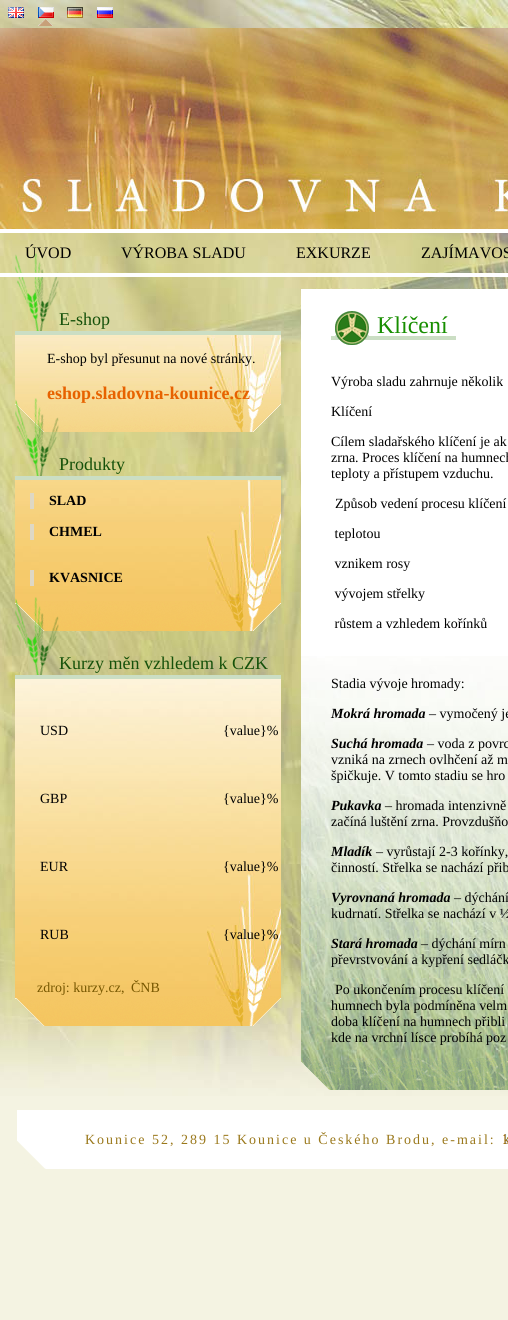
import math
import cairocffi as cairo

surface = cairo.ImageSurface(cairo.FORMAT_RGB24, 508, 1320)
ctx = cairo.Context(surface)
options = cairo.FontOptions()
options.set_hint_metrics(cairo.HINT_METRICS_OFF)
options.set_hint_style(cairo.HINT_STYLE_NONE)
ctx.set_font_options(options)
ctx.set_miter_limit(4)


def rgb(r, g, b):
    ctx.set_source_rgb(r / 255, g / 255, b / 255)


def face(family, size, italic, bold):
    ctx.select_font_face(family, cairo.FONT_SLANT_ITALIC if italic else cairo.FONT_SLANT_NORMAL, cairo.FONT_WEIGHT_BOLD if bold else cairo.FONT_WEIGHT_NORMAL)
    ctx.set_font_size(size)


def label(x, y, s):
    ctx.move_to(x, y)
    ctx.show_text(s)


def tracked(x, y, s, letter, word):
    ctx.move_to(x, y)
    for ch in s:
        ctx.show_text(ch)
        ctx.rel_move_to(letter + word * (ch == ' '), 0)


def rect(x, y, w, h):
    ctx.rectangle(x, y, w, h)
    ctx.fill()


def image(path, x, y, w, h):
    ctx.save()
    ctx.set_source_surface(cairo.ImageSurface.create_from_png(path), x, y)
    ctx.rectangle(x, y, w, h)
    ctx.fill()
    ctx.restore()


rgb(244, 243, 226)
ctx.paint()
image('image0.png', 0, 0, 508, 1096)
image('image1.png', 8, 7, 16, 11)
image('image2.png', 38, 7, 16, 11)
image('image3.png', 67, 7, 16, 11)
image('image4.png', 97, 7, 16, 11)
image('image5.png', 38, 18, 15, 8)
image('image6.png', 0, 28, 508, 201)
rgb(255, 255, 255)
rect(0, 229, 508, 4)
rect(96, 273, 412, 4)
image('image7.png', 15, 253, 44, 78)
rect(0, 273, 96, 4)
face('Liberation Serif', 16, 0, 0)
rgb(0, 0, 0)
label(25, 258, 'ÚVOD')
label(121, 258, 'VÝROBA SLADU')
label(296, 258, 'EXKURZE')
label(421, 258, 'ZAJÍMAVOS')
rgb(203, 222, 196)
rect(15, 331, 266, 4)
face('Liberation Serif', 18, 0, 0)
rgb(21, 81, 10)
label(59, 325, 'E-shop')
image('image8.png', 15, 335, 266, 69)
face('Liberation Serif', 14, 0, 0)
rgb(0, 0, 0)
label(47, 363, 'E-shop byl přesunut na nové stránky.')
face('Liberation Serif', 18, 0, 1)
rgb(231, 98, 0)
label(47, 399, 'eshop.sladovna-kounice.cz')
image('image9.png', 15, 404, 266, 28)
rgb(203, 222, 196)
rect(15, 476, 266, 4)
image('image10.png', 15, 398, 44, 78)
face('Liberation Serif', 18, 0, 0)
rgb(21, 81, 10)
label(59, 470, 'Produkty')
image('image11.png', 15, 480, 266, 121)
rgb(222, 216, 197)
rect(30, 493, 4, 16)
face('Liberation Serif', 14, 0, 1)
rgb(0, 0, 0)
label(49, 505, 'SLAD')
rgb(222, 216, 197)
rect(30, 524, 4, 16)
rgb(0, 0, 0)
label(49, 536, 'CHMEL')
rgb(222, 216, 197)
rect(30, 570, 4, 16)
rgb(0, 0, 0)
label(49, 582, 'KVASNICE')
image('image12.png', 15, 601, 266, 30)
rgb(203, 222, 196)
rect(15, 675, 266, 4)
image('image13.png', 15, 597, 44, 78)
face('Liberation Serif', 18, 0, 0)
rgb(21, 81, 10)
label(59, 669, 'Kurzy měn vzhledem k CZK')
image('image14.png', 15, 679, 266, 317)
face('Liberation Serif', 14, 0, 0)
rgb(0, 0, 0)
label(40, 735, 'USD')
label(223, 735, '{value}%')
label(40, 803, 'GBP')
label(223, 803, '{value}%')
label(40, 871, 'EUR')
label(223, 871, '{value}%')
label(40, 939, 'RUB')
label(223, 939, '{value}%')
rgb(119, 87, 0)
label(37, 992, 'zdroj: kurzy.cz,')
label(131, 992, 'ČNB')
image('image15.png', 15, 996, 266, 30)
rgb(255, 255, 255)
rect(301, 289, 207, 367)
image('image16.png', 301, 656, 207, 404)
rgb(203, 222, 196)
rect(331, 336, 125, 4)
image('image17.png', 335, 311, 34, 34)
face('Liberation Serif', 24, 0, 0)
rgb(23, 142, 0)
label(377, 333, 'Klíčení')
face('Liberation Serif', 14, 0, 0)
rgb(0, 0, 0)
label(331, 386, 'Výroba sladu zahrnuje několik')
label(331, 416, 'Klíčení')
label(331, 446, 'Cílem sladařského klíčení je ak')
label(331, 462, 'zrna. Proces klíčení na humnech')
label(331, 478, 'teploty a přístupem vzduchu.')
label(335, 508, 'Způsob vedení procesu klíčení')
label(331, 538, ' teplotou')
label(331, 568, ' vznikem rosy')
label(331, 598, ' vývojem střelky')
label(331, 628, ' růstem a vzhledem kořínků')
label(331, 688, 'Stadia vývoje hromady:')
face('Liberation Serif', 14, 1, 1)
label(331, 718, 'Mokrá hromada')
face('Liberation Serif', 14, 0, 0)
label(429, 718, '– vymočený je')
face('Liberation Serif', 14, 1, 1)
label(331, 748, 'Suchá hromada')
face('Liberation Serif', 14, 0, 0)
label(427, 748, '– voda z povrc')
label(331, 764, 'vzniká na zrnech ovlhčení až m')
label(331, 780, 'špičkuje. V tomto stadiu se hro')
face('Liberation Serif', 14, 1, 1)
label(331, 810, 'Pukavka')
face('Liberation Serif', 14, 0, 0)
label(385, 810, '– hromada intenzivně')
label(331, 826, 'začíná luštění zrna. Provzdušňo')
face('Liberation Serif', 14, 1, 1)
label(331, 856, 'Mladík')
face('Liberation Serif', 14, 0, 0)
label(376, 856, '– vyrůstají 2-3 kořínky,')
label(331, 872, 'činností. Střelka se nachází přib')
face('Liberation Serif', 14, 1, 1)
label(331, 902, 'Vyrovnaná hromada')
face('Liberation Serif', 14, 0, 0)
label(454, 902, '– dýchání')
label(331, 918, 'kudrnatí. Střelka se nachází v ½')
face('Liberation Serif', 14, 1, 1)
label(331, 948, 'Stará hromada')
face('Liberation Serif', 14, 0, 0)
label(421, 948, '– dýchání mírn')
label(331, 964, 'převrstvování a kypření sedláčk')
label(335, 994, 'Po ukončením procesu klíčení')
label(331, 1010, 'humnech byla podmíněna velm')
label(331, 1026, 'doba klíčení na humnech přibli')
label(331, 1042, 'kde na vrchní lísce probíhá poz')
image('image18.png', 301, 1060, 207, 30)
image('image19.png', 17, 1110, 491, 59)
rgb(154, 120, 27)
tracked(85, 1144, 'Kounice 52, 289 15 Kounice u Českého Brodu, e-mail:', 2, 0)
image('image20.png', 503, 1134, 5, 10)
surface.write_to_png('render.png')
